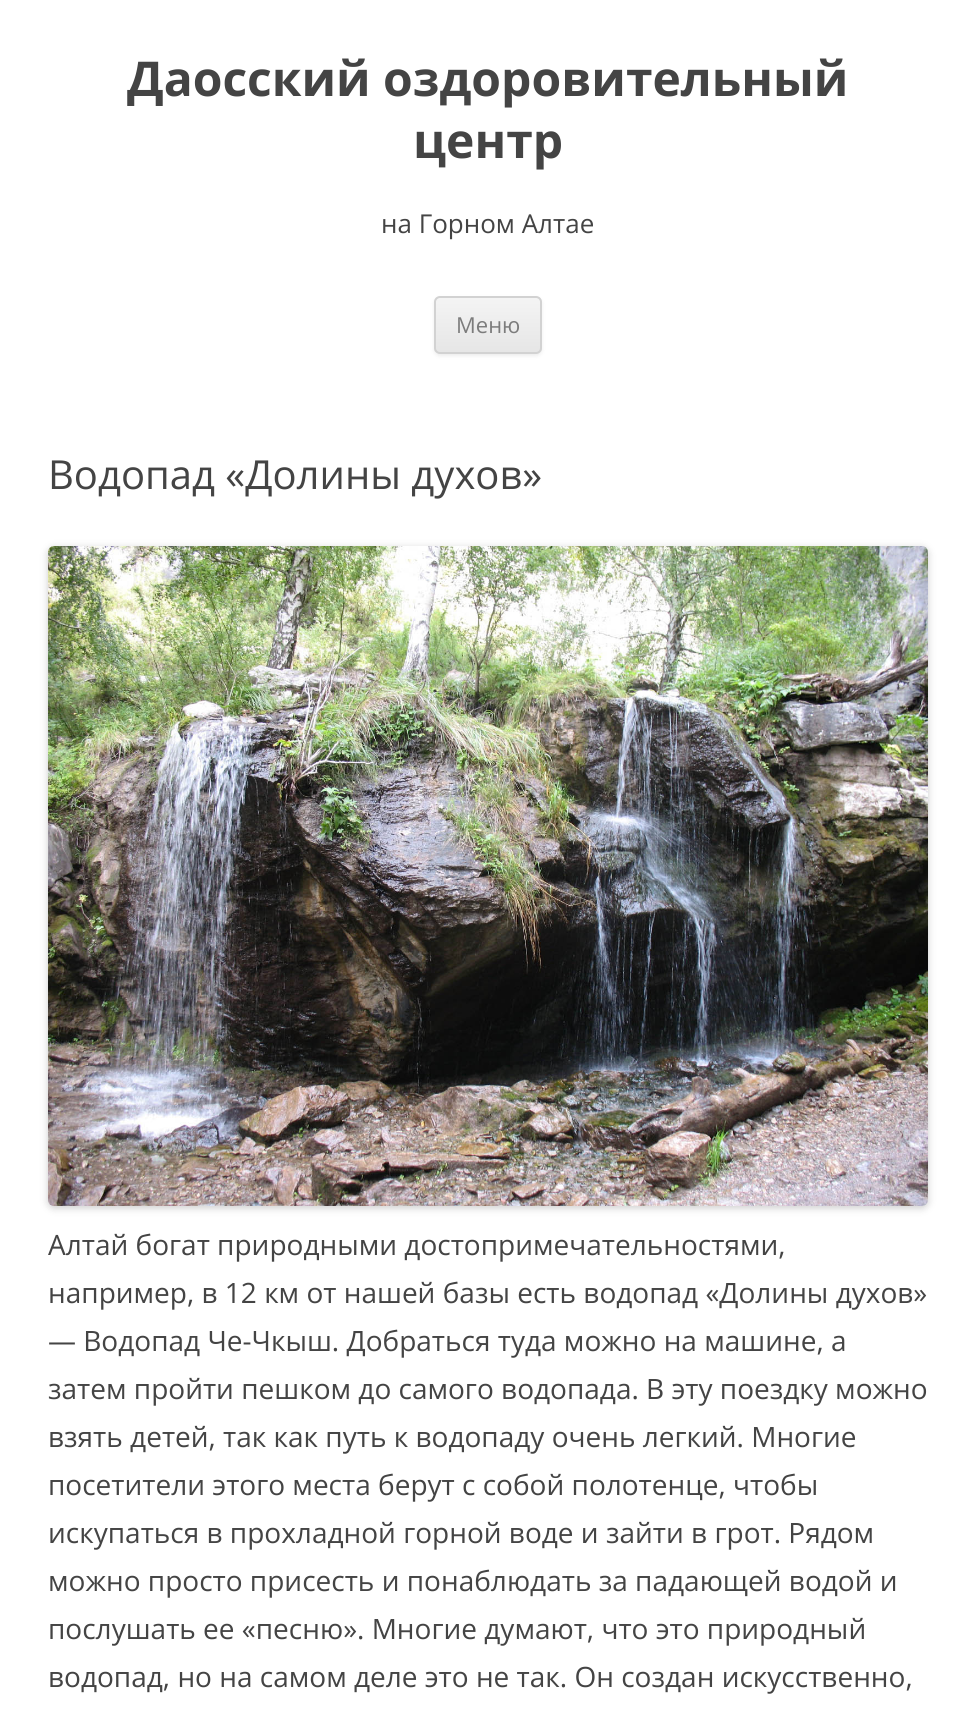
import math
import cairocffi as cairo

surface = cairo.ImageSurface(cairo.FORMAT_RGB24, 976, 1722)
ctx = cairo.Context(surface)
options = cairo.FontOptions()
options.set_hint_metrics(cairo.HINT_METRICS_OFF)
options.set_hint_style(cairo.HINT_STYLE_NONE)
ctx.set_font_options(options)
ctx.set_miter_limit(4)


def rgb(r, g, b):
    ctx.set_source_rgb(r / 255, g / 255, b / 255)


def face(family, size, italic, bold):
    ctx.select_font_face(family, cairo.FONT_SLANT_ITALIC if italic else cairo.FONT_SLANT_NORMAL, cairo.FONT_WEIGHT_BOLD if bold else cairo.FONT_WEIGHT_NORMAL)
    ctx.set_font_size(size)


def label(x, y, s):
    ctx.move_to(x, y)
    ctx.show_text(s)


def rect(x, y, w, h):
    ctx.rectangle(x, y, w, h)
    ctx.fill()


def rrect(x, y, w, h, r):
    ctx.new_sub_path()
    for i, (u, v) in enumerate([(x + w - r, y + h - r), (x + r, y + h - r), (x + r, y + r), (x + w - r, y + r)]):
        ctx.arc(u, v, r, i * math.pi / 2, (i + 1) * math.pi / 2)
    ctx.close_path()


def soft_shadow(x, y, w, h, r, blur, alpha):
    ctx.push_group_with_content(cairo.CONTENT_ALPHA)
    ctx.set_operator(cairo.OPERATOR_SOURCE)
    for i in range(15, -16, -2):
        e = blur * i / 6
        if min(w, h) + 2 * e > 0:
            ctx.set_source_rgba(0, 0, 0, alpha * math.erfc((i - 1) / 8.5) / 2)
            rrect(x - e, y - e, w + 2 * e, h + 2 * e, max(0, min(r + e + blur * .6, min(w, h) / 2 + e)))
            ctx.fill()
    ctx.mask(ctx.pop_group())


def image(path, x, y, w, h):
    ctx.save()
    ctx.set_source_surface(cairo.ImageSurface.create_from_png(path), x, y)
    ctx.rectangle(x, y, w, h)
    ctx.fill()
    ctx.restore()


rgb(255, 255, 255)
ctx.paint()
face('Open Sans', 48, 0, 1)
rgb(68, 68, 68)
label(127, 96, 'Даосский оздоровительный')
label(413, 158, 'центр')
face('Open Sans', 26, 0, 0)
label(381, 233, 'на Горном Алтае')
rgb(64, 64, 64)
soft_shadow(434, 298, 108, 58, 6, 2, 0.1)
ctx.save()
rrect(434, 296, 108, 58, 6)
ctx.clip()
gradient = cairo.LinearGradient(488, 298, 488, 352)
gradient.add_color_stop_rgba(0, 0.957, 0.957, 0.957, 1)
gradient.add_color_stop_rgba(1, 0.902, 0.902, 0.902, 1)
ctx.set_source(gradient)
rect(434, 298, 108, 54)
ctx.restore()
rrect(435, 297, 106, 56, 5)
rgb(210, 210, 210)
ctx.stroke()
face('Open Sans', 22, 0, 0)
rgb(124, 124, 124)
label(456, 333, 'Меню')
face('Open Sans', 40, 0, 0)
rgb(68, 68, 68)
label(48, 489, 'Водопад «Долины духов»')
rgb(0, 0, 0)
soft_shadow(48, 548, 880, 660, 6, 4, 0.2)
image('image0.png', 48, 546, 880, 660)
face('Open Sans', 28, 0, 0)
rgb(68, 68, 68)
label(48, 1255, 'Алтай богат природными достопримечательностями,')
label(48, 1303, 'например, в 12 км от нашей базы есть водопад «Долины духов»')
label(48, 1351, '— Водопад Че-Чкыш. Добраться туда можно на машине, а')
label(48, 1399, 'затем пройти пешком до самого водопада. В эту поездку можно')
label(48, 1447, 'взять детей, так как путь к водопаду очень легкий. Многие')
label(48, 1495, 'посетители этого места берут с собой полотенце, чтобы')
label(48, 1543, 'искупаться в прохладной горной воде и зайти в грот. Рядом')
label(48, 1591, 'можно просто присесть и понаблюдать за падающей водой и')
label(48, 1639, 'послушать ее «песню». Многие думают, что это природный')
label(48, 1687, 'водопад, но на самом деле это не так. Он создан искусственно,')
surface.write_to_png('render.png')
